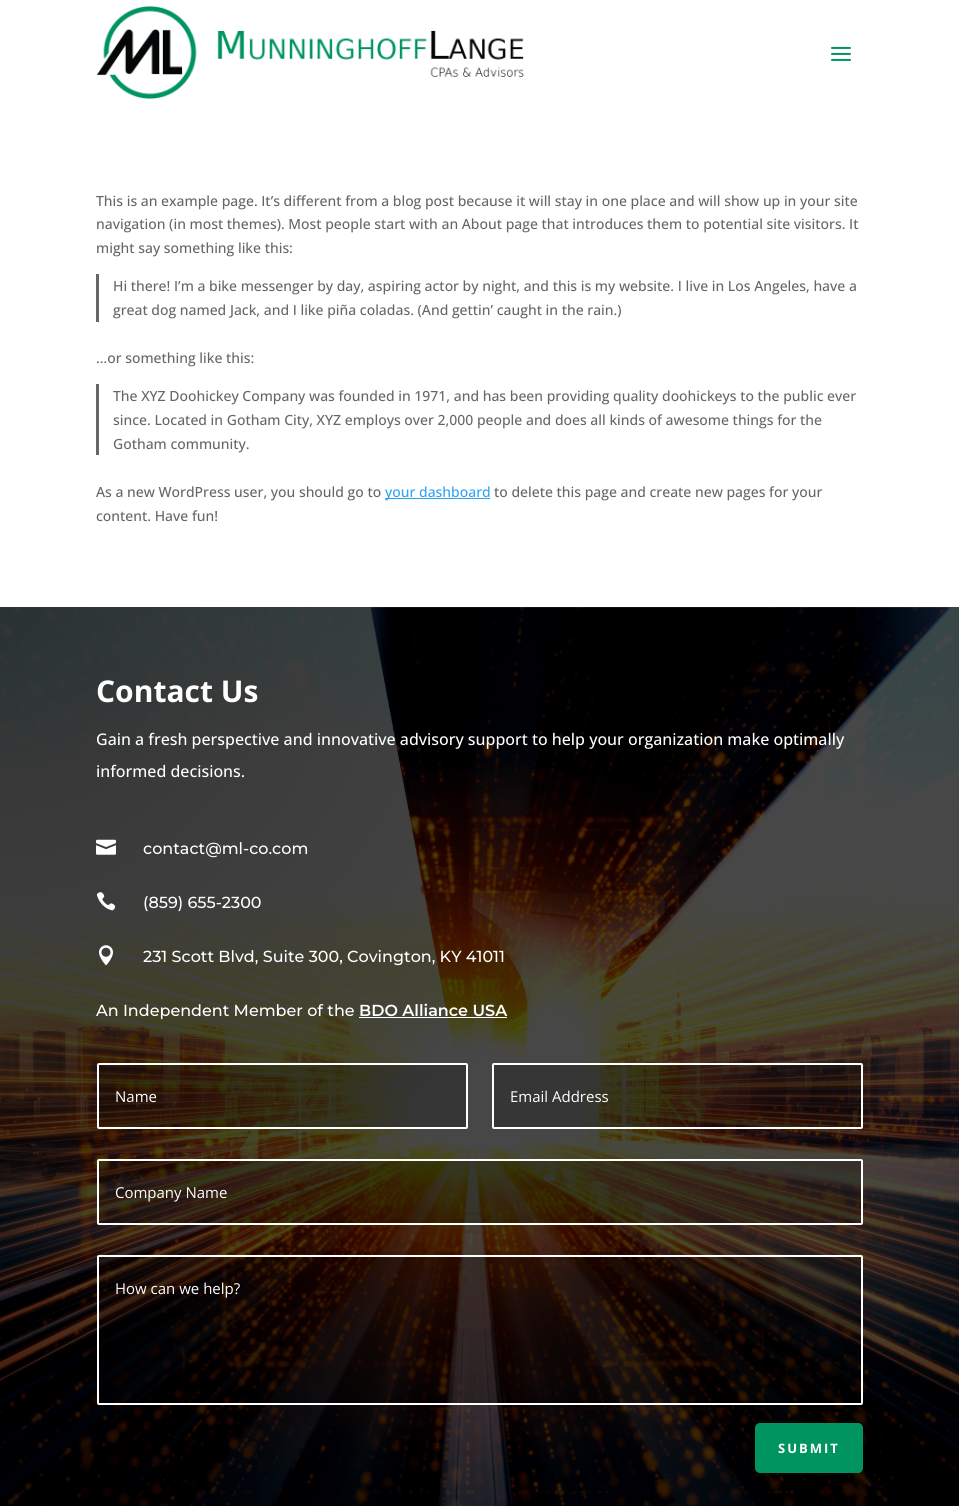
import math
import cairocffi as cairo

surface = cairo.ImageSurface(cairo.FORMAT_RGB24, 959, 1506)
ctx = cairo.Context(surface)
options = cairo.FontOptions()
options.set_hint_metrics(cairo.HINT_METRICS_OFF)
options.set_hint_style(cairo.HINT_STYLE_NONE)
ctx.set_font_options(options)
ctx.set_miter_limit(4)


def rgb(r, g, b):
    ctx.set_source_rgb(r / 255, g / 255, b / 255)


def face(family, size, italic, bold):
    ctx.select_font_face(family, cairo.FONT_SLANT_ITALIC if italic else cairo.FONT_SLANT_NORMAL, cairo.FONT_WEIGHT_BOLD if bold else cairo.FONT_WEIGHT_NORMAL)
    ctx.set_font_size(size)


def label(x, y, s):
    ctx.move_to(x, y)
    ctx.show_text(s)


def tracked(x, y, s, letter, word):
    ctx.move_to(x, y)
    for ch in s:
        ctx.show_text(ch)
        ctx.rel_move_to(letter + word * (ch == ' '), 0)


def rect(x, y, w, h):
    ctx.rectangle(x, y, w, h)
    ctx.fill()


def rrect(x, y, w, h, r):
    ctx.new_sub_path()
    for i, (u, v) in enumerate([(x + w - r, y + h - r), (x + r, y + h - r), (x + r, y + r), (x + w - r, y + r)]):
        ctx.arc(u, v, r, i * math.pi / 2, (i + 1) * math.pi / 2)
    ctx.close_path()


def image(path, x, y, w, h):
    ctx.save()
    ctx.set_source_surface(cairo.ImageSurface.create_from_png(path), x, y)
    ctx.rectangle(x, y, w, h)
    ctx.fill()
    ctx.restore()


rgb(255, 255, 255)
ctx.paint()
image('image0.png', 97, 5, 428, 95)
image('image1.png', 831, 46, 20, 15)
face('Open Sans Medium', 14, 0, 0)
rgb(102, 102, 102)
label(96, 206, 'This is an example page. It’s different from a blog post because it will stay in one place and will show up in your site')
label(96, 229, 'navigation (in most themes). Most people start with an About page that introduces them to potential site visitors. It')
label(96, 253, 'might say something like this:')
rect(96, 274, 3, 48)
label(113, 291, 'Hi there! I’m a bike messenger by day, aspiring actor by night, and this is my website. I live in Los Angeles, have a')
label(113, 315, 'great dog named Jack, and I like piña coladas. (And gettin’ caught in the rain.)')
label(96, 363, '…or something like this:')
rect(96, 384, 3, 71)
label(113, 401, 'The XYZ Doohickey Company was founded in 1971, and has been providing quality doohickeys to the public ever')
label(113, 425, 'since. Located in Gotham City, XYZ employs over 2,000 people and does all kinds of awesome things for the')
label(113, 449, 'Gotham community.')
label(96, 497, 'As a new WordPress user, you should go to')
rgb(46, 163, 242)
rect(385, 498, 105, 1)
label(385, 497, 'your dashboard')
rgb(102, 102, 102)
label(494, 497, 'to delete this page and create new pages for your')
label(96, 521, 'content. Have fun!')
image('image2.png', 0, 607, 959, 899)
face('Open Sans', 30, 0, 1)
rgb(255, 255, 255)
label(96, 702, 'Contact Us')
face('Open Sans Medium', 16, 0, 0)
label(96, 745, 'Gain a fresh perspective and innovative advisory support to help your organization make optimally')
label(96, 777, 'informed decisions.')
image('image3.png', 96, 839, 20, 16)
face('Montserrat Thin', 16, 0, 0)
label(143, 854, 'contact@ml-co.com')
image('image4.png', 96, 892, 20, 19)
label(143, 908, '(859) 655-2300')
image('image5.png', 99, 945, 14, 21)
label(143, 962, '231 Scott Blvd, Suite 300, Covington, KY 41011')
label(96, 1016, 'An Independent Member of the')
face('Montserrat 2 Thin', 16, 0, 0)
label(359, 1016, 'BDO Alliance USA')
rect(359, 1017, 148, 1)
ctx.set_source_rgba(0, 0, 0, 0.24)
rrect(98, 1064, 369, 64, 1)
ctx.fill_preserve()
rgb(255, 255, 255)
ctx.stroke()
face('Open Sans', 15, 0, 0)
label(115, 1102, 'Name')
ctx.set_source_rgba(0, 0, 0, 0.24)
rrect(493, 1064, 369, 64, 1)
ctx.fill_preserve()
rgb(255, 255, 255)
ctx.stroke()
label(510, 1102, 'Email Address')
ctx.set_source_rgba(0, 0, 0, 0.24)
rrect(98, 1160, 764, 64, 1)
ctx.fill_preserve()
rgb(255, 255, 255)
ctx.stroke()
label(115, 1198, 'Company Name')
ctx.set_source_rgba(0, 0, 0, 0.24)
rrect(98, 1256, 764, 148, 1)
ctx.fill_preserve()
rgb(255, 255, 255)
ctx.stroke()
label(115, 1294, 'How can we help?')
rgb(0, 148, 94)
rrect(755, 1423, 108, 50, 5)
ctx.fill()
face('Open Sans', 13, 0, 1)
rgb(255, 255, 255)
tracked(778, 1453, 'SUBMIT', 2, 0)
surface.write_to_png('render.png')
